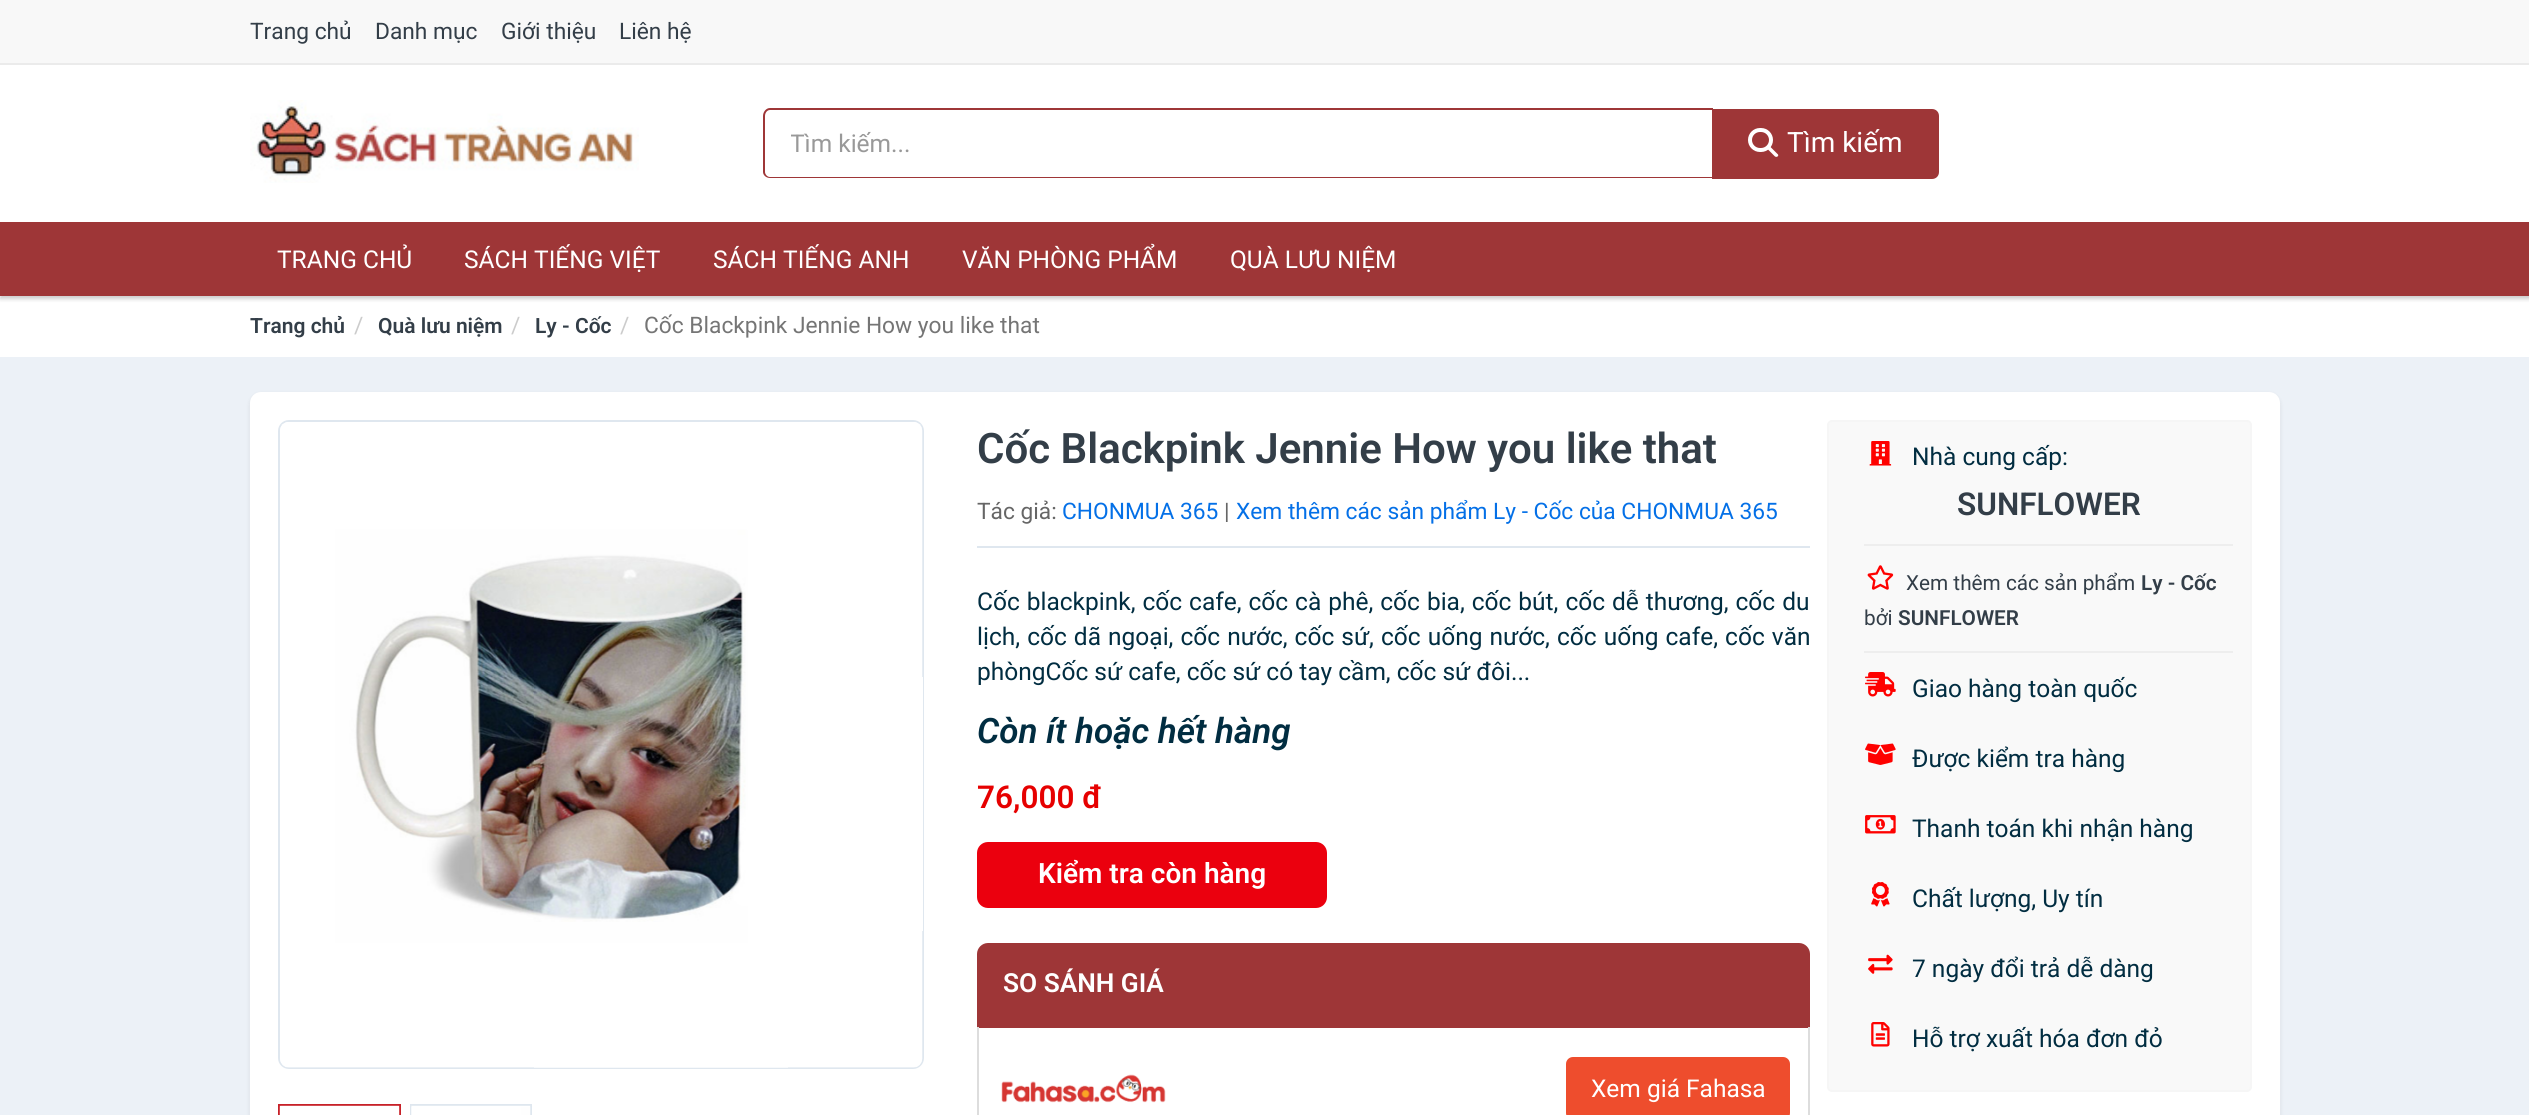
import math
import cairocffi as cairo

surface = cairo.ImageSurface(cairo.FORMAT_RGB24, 2529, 1115)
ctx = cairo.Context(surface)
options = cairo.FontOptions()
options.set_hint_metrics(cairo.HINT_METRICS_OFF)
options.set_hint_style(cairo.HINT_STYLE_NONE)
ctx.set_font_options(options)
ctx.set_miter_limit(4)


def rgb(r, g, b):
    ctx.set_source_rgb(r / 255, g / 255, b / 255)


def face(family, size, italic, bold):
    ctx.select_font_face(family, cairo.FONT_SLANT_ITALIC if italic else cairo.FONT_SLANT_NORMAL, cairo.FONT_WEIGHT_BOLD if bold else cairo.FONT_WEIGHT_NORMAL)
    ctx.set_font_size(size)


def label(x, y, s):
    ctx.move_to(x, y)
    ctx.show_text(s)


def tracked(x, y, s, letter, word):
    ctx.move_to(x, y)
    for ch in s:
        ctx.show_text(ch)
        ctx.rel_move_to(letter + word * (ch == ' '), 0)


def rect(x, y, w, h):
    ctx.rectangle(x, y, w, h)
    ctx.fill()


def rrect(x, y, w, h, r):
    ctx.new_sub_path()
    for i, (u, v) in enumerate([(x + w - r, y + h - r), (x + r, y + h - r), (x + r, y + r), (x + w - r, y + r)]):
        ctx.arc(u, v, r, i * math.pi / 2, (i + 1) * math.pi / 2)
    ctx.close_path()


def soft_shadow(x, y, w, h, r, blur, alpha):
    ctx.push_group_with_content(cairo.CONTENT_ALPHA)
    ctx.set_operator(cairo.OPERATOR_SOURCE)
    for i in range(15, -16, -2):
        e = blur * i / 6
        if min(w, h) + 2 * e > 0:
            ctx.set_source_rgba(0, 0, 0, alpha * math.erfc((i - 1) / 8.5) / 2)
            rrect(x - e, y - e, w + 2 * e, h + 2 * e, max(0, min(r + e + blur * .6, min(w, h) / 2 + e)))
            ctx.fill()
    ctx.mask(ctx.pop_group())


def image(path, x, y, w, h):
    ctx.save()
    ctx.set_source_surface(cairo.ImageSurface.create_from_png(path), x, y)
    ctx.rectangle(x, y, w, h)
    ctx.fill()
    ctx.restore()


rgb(255, 255, 255)
ctx.paint()
rgb(248, 248, 248)
rect(0, 0, 2529, 63)
rgb(235, 235, 235)
rect(0, 63, 2529, 2)
face('Roboto', 22.75, 0, 0)
rgb(51, 62, 72)
label(250, 39, 'Trang chủ')
label(375, 39, 'Danh mục')
label(501, 39, 'Giới thiệu')
label(619, 39, 'Liên hệ')
image('image0.png', 250, 100, 389, 83)
rgb(158, 54, 55)
ctx.set_fill_rule(cairo.FILL_RULE_EVEN_ODD)
ctx.new_path()
ctx.move_to(770, 108)
ctx.line_to(1713, 108)
ctx.line_to(1713, 178)
ctx.line_to(770, 178)
ctx.curve_to(766, 178, 763, 175, 763, 172)
ctx.line_to(763, 116)
ctx.curve_to(763, 112, 766, 108, 770, 108)
ctx.close_path()
ctx.move_to(770, 110)
ctx.line_to(1713, 110)
ctx.line_to(1713, 177)
ctx.line_to(770, 177)
ctx.curve_to(767, 177, 765, 174, 765, 172)
ctx.line_to(765, 116)
ctx.curve_to(765, 113, 767, 110, 770, 110)
ctx.close_path()
ctx.fill()
ctx.save()
ctx.set_fill_rule(cairo.FILL_RULE_WINDING)
ctx.rectangle(791, 130, 896, 28)
ctx.clip()
face('Roboto', 24.5, 0, 0)
rgb(153, 153, 153)
label(790, 152, 'Tìm kiếm...')
ctx.restore()
ctx.new_path()
ctx.move_to(1712, 109)
ctx.line_to(1932, 109)
ctx.curve_to(1936, 109, 1939, 112, 1939, 116)
ctx.line_to(1939, 172)
ctx.curve_to(1939, 176, 1936, 179, 1932, 179)
ctx.line_to(1712, 179)
ctx.close_path()
ctx.fill()
rrect(1750, 130, 21, 20, 10)
rgb(255, 255, 255)
ctx.set_line_width(4)
ctx.stroke()
ctx.set_fill_rule(cairo.FILL_RULE_WINDING)
ctx.new_path()
ctx.move_to(1769, 145.5)
ctx.line_to(1777.5, 154)
ctx.curve_to(1778.5, 154.5, 1778.5, 156, 1777.5, 156.5)
ctx.curve_to(1777, 157, 1776, 157, 1775, 156.5)
ctx.line_to(1766.5, 148)
ctx.close_path()
ctx.fill()
face('Roboto', 28, 0, 0)
label(1787, 152, 'Tìm kiếm')
rgb(0, 0, 0)
soft_shadow(0, 226, 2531, 73, 0, 2, 0.2)
rgb(158, 54, 55)
rect(0, 222, 2529, 74)
face('Roboto', 24.5, 0, 0)
rgb(255, 255, 255)
label(277, 268, 'TRANG CHỦ')
label(464, 268, 'SÁCH TIẾNG VIỆT')
label(713, 268, 'SÁCH TIẾNG ANH')
label(962, 268, 'VĂN PHÒNG PHẨM')
label(1230, 268, 'QUÀ LƯU NIỆM')
face('Roboto SemiBold', 21, 0, 0)
rgb(51, 62, 72)
label(250, 333, 'Trang chủ')
face('Roboto', 22.75, 0, 0)
rgb(204, 204, 204)
label(354, 333, '/')
face('Roboto SemiBold', 21, 0, 0)
rgb(51, 62, 72)
label(378, 333, 'Quà lưu niệm')
face('Roboto', 22.75, 0, 0)
rgb(204, 204, 204)
label(511, 333, '/')
face('Roboto SemiBold', 21, 0, 0)
rgb(51, 62, 72)
label(535, 333, 'Ly - Cốc')
face('Roboto', 22.75, 0, 0)
rgb(204, 204, 204)
label(620, 333, '/')
rgb(117, 117, 117)
label(644, 333, 'Cốc Blackpink Jennie How you like that')
rgb(236, 241, 247)
rect(0, 357, 2529, 758)
rgb(0, 0, 0)
soft_shadow(250, 394, 2030, 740, 11, 2.5, 0.08)
rgb(255, 255, 255)
rrect(250, 392, 2030, 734, 11)
ctx.fill()
rrect(279, 421, 644, 647, 10)
rgb(223, 231, 239)
ctx.set_line_width(2)
ctx.stroke()
image('image1.png', 280, 422, 643, 646)
ctx.rectangle(279, 1105, 121, 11)
rgb(199, 33, 41)
ctx.stroke()
image('image2.png', 279, 1105, 121, 10)
ctx.rectangle(411, 1105, 120, 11)
rgb(223, 231, 239)
ctx.stroke()
image('image3.png', 411, 1105, 120, 10)
face('Roboto SemiBold', 42, 0, 0)
rgb(51, 62, 72)
label(977, 463, 'Cốc Blackpink Jennie How you like that')
face('Roboto', 22.75, 0, 0)
rgb(102, 102, 102)
label(977, 519, 'Tác giả:')
rgb(4, 112, 231)
label(1062, 519, 'CHONMUA 365')
rgb(102, 102, 102)
label(1224, 519, '|')
rgb(4, 112, 231)
label(1236, 519, 'Xem thêm các sản phẩm Ly - Cốc của CHONMUA 365')
rgb(223, 231, 239)
rect(977, 546, 833, 2)
face('Roboto', 24.5, 0, 0)
rgb(1, 45, 65)
tracked(977, 610, 'Cốc blackpink, cốc cafe, cốc cà phê, cốc bia, cốc bút, cốc dễ thương, cốc du', 0, 0.9)
tracked(977, 645, 'lịch, cốc dã ngoại, cốc nước, cốc sứ, cốc uống nước, cốc uống cafe, cốc văn', 0, 1)
label(977, 680, 'phòngCốc sứ cafe, cốc sứ có tay cầm, cốc sứ đôi...')
face('Roboto SemiBold', 35, 1, 0)
label(977, 743, 'Còn ít hoặc hết hàng')
face('Roboto SemiBold', 31.5, 0, 0)
rgb(230, 0, 0)
label(977, 808, '76,000 đ')
rgb(235, 0, 14)
rrect(979, 844, 346, 62, 9)
ctx.fill_preserve()
ctx.set_line_width(4)
ctx.stroke()
face('Roboto SemiBold', 28, 0, 0)
rgb(255, 255, 255)
label(1038, 883, 'Kiểm tra còn hàng')
rgb(158, 54, 55)
ctx.new_path()
ctx.move_to(988, 943)
ctx.line_to(1799, 943)
ctx.curve_to(1805, 943, 1810, 948, 1810, 954)
ctx.line_to(1810, 1027)
ctx.line_to(977, 1027)
ctx.line_to(977, 954)
ctx.curve_to(977, 948, 982, 943, 988, 943)
ctx.close_path()
ctx.fill()
rect(977, 1027, 833, 1)
face('Roboto SemiBold', 26.25, 0, 0)
rgb(255, 255, 255)
label(1003, 992, 'SO SÁNH GIÁ')
rgb(221, 221, 221)
rect(1808, 1027, 2, 88)
rect(977, 1027, 2, 88)
image('image4.png', 1001, 1074, 165, 29)
rgb(238, 77, 45)
rrect(1568, 1059, 220, 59, 5)
ctx.fill_preserve()
ctx.stroke()
face('Roboto', 24.5, 0, 0)
rgb(255, 255, 255)
label(1591, 1097, 'Xem giá Fahasa')
rgb(249, 249, 249)
rrect(1828, 421, 423, 670, 4)
ctx.fill_preserve()
rgb(246, 246, 246)
ctx.set_line_width(2)
ctx.stroke()
rgb(238, 238, 238)
rect(1864, 651, 369, 2)
image('image5.png', 1869, 441, 23, 25)
rgb(1, 45, 65)
label(1912, 465, 'Nhà cung cấp:')
rgb(238, 238, 238)
rect(1864, 544, 369, 2)
face('Roboto SemiBold', 31.5, 0, 0)
rgb(51, 62, 72)
label(1957, 515, 'SUNFLOWER')
image('image6.png', 1867, 565, 27, 25)
face('Roboto', 20.75, 0, 0)
label(1906, 590, 'Xem thêm các sản phẩm')
face('Roboto SemiBold', 20.75, 0, 0)
label(2141, 590, 'Ly - Cốc')
face('Roboto', 20.75, 0, 0)
label(1864, 625, 'bởi')
face('Roboto SemiBold', 20.75, 0, 0)
label(1898, 625, 'SUNFLOWER')
image('image7.png', 1865, 672, 31, 25)
face('Roboto', 24.5, 0, 0)
rgb(1, 45, 65)
label(1912, 697, 'Giao hàng toàn quốc')
image('image8.png', 1865, 743, 31, 22)
label(1912, 767, 'Được kiểm tra hàng')
image('image9.png', 1865, 815, 31, 19)
label(1912, 837, 'Thanh toán khi nhận hàng')
image('image10.png', 1871, 882, 19, 25)
label(1912, 907, 'Chất lượng, Uy tín')
image('image11.png', 1868, 954, 25, 20)
label(1912, 977, '7 ngày đổi trả dễ dàng')
image('image12.png', 1871, 1022, 19, 25)
label(1912, 1047, 'Hỗ trợ xuất hóa đơn đỏ')
surface.write_to_png('render.png')
